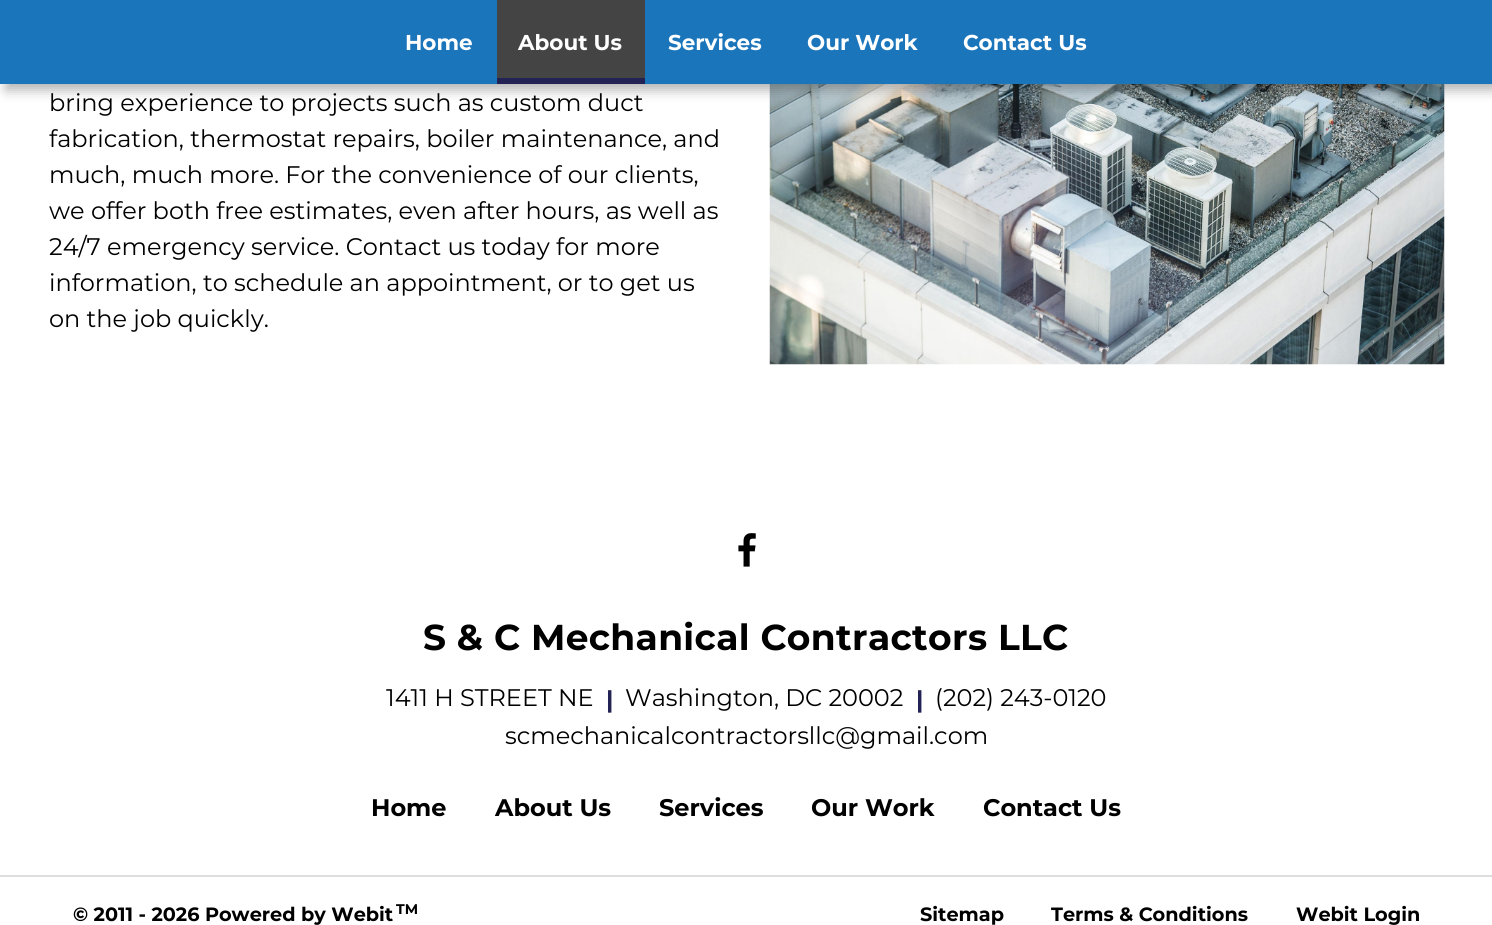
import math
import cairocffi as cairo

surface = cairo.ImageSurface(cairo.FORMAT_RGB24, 1492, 925)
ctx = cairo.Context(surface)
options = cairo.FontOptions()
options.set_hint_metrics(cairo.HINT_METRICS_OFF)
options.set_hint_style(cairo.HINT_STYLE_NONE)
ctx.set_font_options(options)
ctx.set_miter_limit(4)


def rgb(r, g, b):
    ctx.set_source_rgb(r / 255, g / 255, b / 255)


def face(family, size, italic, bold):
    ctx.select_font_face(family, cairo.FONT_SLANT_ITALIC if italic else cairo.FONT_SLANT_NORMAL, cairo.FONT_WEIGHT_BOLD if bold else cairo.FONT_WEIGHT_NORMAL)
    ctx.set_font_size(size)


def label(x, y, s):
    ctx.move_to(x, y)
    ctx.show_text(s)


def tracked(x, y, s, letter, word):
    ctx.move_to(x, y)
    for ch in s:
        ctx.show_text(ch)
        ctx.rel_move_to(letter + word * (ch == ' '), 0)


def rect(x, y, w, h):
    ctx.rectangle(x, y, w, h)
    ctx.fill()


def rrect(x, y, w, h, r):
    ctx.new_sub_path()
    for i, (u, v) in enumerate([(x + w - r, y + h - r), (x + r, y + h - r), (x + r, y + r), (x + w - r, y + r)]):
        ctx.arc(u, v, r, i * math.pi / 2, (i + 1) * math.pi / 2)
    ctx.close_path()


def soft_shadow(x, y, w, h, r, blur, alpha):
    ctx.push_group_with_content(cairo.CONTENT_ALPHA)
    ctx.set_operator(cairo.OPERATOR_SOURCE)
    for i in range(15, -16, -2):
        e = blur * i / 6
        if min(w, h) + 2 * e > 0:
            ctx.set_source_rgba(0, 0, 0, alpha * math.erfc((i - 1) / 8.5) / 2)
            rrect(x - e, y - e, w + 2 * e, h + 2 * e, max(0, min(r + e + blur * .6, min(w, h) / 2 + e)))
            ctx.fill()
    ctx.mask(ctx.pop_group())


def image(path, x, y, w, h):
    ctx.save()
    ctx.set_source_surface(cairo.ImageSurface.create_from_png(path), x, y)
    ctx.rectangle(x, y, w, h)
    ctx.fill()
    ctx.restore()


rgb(255, 255, 255)
ctx.paint()
image('image0.png', 769, 84, 676, 281)
rgb(0, 0, 0)
soft_shadow(6, 6, 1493, 84, 0, 6, 0.3)
rgb(27, 117, 187)
rect(0, 0, 1492, 84)
face('Montserrat', 21.5, 0, 1)
rgb(255, 255, 255)
label(405, 50, 'Home')
rgb(68, 68, 68)
rect(497, 0, 148, 78)
rgb(255, 255, 255)
label(518, 50, 'About Us')
rgb(34, 34, 85)
rect(497, 78, 148, 6)
rgb(255, 255, 255)
label(668, 50, 'Services')
label(807, 50, 'Our Work')
label(963, 50, 'Contact Us')
face('Montserrat', 24, 0, 0)
rgb(0, 0, 0)
label(49, 111, 'bring experience to projects such as custom duct')
label(49, 147, 'fabrication, thermostat repairs, boiler maintenance, and')
label(49, 183, 'much, much more. For the convenience of our clients,')
label(49, 219, 'we offer both free estimates, even after hours, as well as')
label(49, 255, '24/7 emergency service. Contact us today for more')
label(49, 291, 'information, to schedule an appointment, or to get us')
label(49, 327, 'on the job quickly.')
image('image1.png', 738, 533, 18, 34)
face('Montserrat', 36, 0, 1)
tracked(423, 650, 'S & C Mechanical Contractors LLC', 0.35, 0)
face('Montserrat', 24, 0, 0)
label(386, 706, '1411 H STREET NE')
face('Montserrat', 24, 0, 1)
rgb(34, 34, 85)
label(606, 708, '|')
face('Montserrat', 24, 0, 0)
rgb(0, 0, 0)
label(625, 706, 'Washington, DC 20002')
face('Montserrat', 24, 0, 1)
rgb(34, 34, 85)
label(916, 708, '|')
face('Montserrat', 24, 0, 0)
rgb(0, 0, 0)
label(935, 706, '(202) 243-0120')
label(505, 744, 'scmechanicalcontractorsllc@gmail.com')
face('Montserrat', 24, 0, 1)
label(371, 816, 'Home')
label(495, 816, 'About Us')
label(659, 816, 'Services')
label(811, 816, 'Our Work')
label(983, 816, 'Contact Us')
rgb(221, 221, 221)
rect(0, 875, 1492, 2)
face('Montserrat', 19.25, 0, 1)
rgb(0, 0, 0)
label(73, 921, '© 2011 - 2026 Powered by Webit')
face('Montserrat', 14, 0, 1)
label(396, 914, 'TM')
face('Montserrat', 19.25, 0, 1)
label(920, 921, 'Sitemap')
label(1051, 921, 'Terms & Conditions')
label(1296, 921, 'Webit Login')
surface.write_to_png('render.png')
